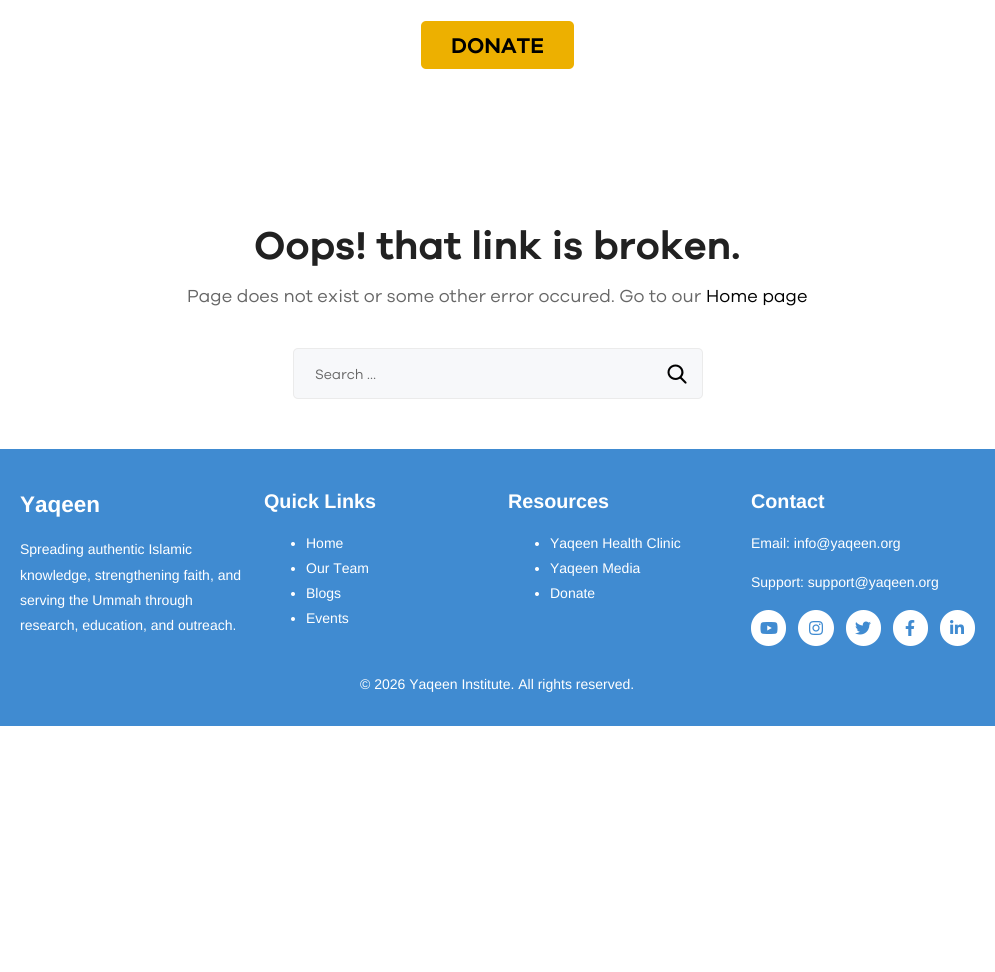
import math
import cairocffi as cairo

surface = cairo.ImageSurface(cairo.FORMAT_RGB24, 995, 972)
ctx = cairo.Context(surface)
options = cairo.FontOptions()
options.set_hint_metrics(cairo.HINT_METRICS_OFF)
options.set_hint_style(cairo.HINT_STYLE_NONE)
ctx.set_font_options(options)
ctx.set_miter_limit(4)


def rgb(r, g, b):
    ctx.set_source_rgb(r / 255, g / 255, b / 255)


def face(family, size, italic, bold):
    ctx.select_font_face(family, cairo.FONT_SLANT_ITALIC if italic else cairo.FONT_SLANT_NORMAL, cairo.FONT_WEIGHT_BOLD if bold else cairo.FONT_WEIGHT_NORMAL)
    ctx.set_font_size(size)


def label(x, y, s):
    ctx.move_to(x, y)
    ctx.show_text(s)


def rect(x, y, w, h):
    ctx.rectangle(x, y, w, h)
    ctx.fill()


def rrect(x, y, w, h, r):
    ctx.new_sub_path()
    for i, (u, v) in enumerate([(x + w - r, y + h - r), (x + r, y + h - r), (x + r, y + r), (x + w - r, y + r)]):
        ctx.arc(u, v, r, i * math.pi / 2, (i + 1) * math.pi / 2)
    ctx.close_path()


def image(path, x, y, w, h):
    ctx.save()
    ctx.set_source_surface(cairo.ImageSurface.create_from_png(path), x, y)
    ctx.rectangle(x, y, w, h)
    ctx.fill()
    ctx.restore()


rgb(255, 255, 255)
ctx.paint()
rgb(237, 176, 0)
rrect(421, 21, 153, 48, 5)
ctx.fill()
face('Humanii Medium', 22, 0, 0)
rgb(0, 0, 0)
label(451, 53, 'DONATE')
face('Humanii Medium', 40, 0, 0)
rgb(33, 33, 33)
label(254, 259, 'Oops! that link is broken.')
face('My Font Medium', 18, 0, 0)
rgb(102, 102, 102)
label(187, 302, 'Page does not exist or some other error occured. Go to our')
rgb(0, 0, 0)
label(706, 302, 'Home page')
rgb(247, 248, 250)
rrect(293.5, 348.5, 409, 50, 4.5)
ctx.fill_preserve()
rgb(235, 235, 235)
ctx.set_line_width(1)
ctx.stroke()
face('My Font Medium', 14, 0, 0)
rgb(102, 102, 102)
label(315, 379, 'Search …')
image('image0.png', 667, 364, 20, 20)
rgb(64, 139, 209)
rect(0, 449, 995, 277)
face('Liberation Sans', 22.5, 0, 1)
rgb(255, 255, 255)
label(20, 512, 'Yaqeen')
face('Liberation Sans', 14, 0, 0)
label(20, 554, 'Spreading authentic Islamic')
label(20, 580, 'knowledge, strengthening faith, and')
label(20, 605, 'serving the Ummah through')
label(20, 630, 'research, education, and outreach.')
face('Liberation Sans', 19.75, 0, 1)
label(264, 508, 'Quick Links')
ctx.new_path()
ctx.arc(293, 544, 2, 0, 2 * math.pi)
ctx.fill()
face('Liberation Sans', 14, 0, 0)
label(306, 548, 'Home')
ctx.new_path()
ctx.arc(293, 569, 2, 0, 2 * math.pi)
ctx.fill()
label(306, 573, 'Our Team')
ctx.new_path()
ctx.arc(293, 594, 2, 0, 2 * math.pi)
ctx.fill()
label(306, 598, 'Blogs')
ctx.new_path()
ctx.arc(293, 619, 2, 0, 2 * math.pi)
ctx.fill()
label(306, 623, 'Events')
face('Liberation Sans', 19.75, 0, 1)
label(508, 508, 'Resources')
ctx.new_path()
ctx.arc(537, 544, 2, 0, 2 * math.pi)
ctx.fill()
face('Liberation Sans', 14, 0, 0)
label(550, 548, 'Yaqeen Health Clinic')
ctx.new_path()
ctx.arc(537, 569, 2, 0, 2 * math.pi)
ctx.fill()
label(550, 573, 'Yaqeen Media')
ctx.new_path()
ctx.arc(537, 594, 2, 0, 2 * math.pi)
ctx.fill()
label(550, 598, 'Donate')
face('Liberation Sans', 19.75, 0, 1)
label(751, 508, 'Contact')
face('Liberation Sans', 14, 0, 0)
label(751, 548, 'Email: info@yaqeen.org')
label(751, 587, 'Support: support@yaqeen.org')
rrect(751, 610, 35, 36, 17.5)
ctx.fill()
image('image1.png', 760, 622, 18, 12)
ctx.arc(816, 628, 18, 0, 2 * math.pi)
ctx.fill()
image('image2.png', 809, 621, 14, 14)
rrect(846, 610, 35, 36, 17.5)
ctx.fill()
image('image3.png', 855, 621, 16, 14)
rrect(893, 610, 35, 36, 17.5)
ctx.fill()
image('image4.png', 905, 620, 10, 16)
rrect(940, 610, 35, 36, 17.5)
ctx.fill()
image('image5.png', 950, 620, 14, 14)
label(360, 689, '© 2026 Yaqeen Institute. All rights reserved.')
surface.write_to_png('render.png')
